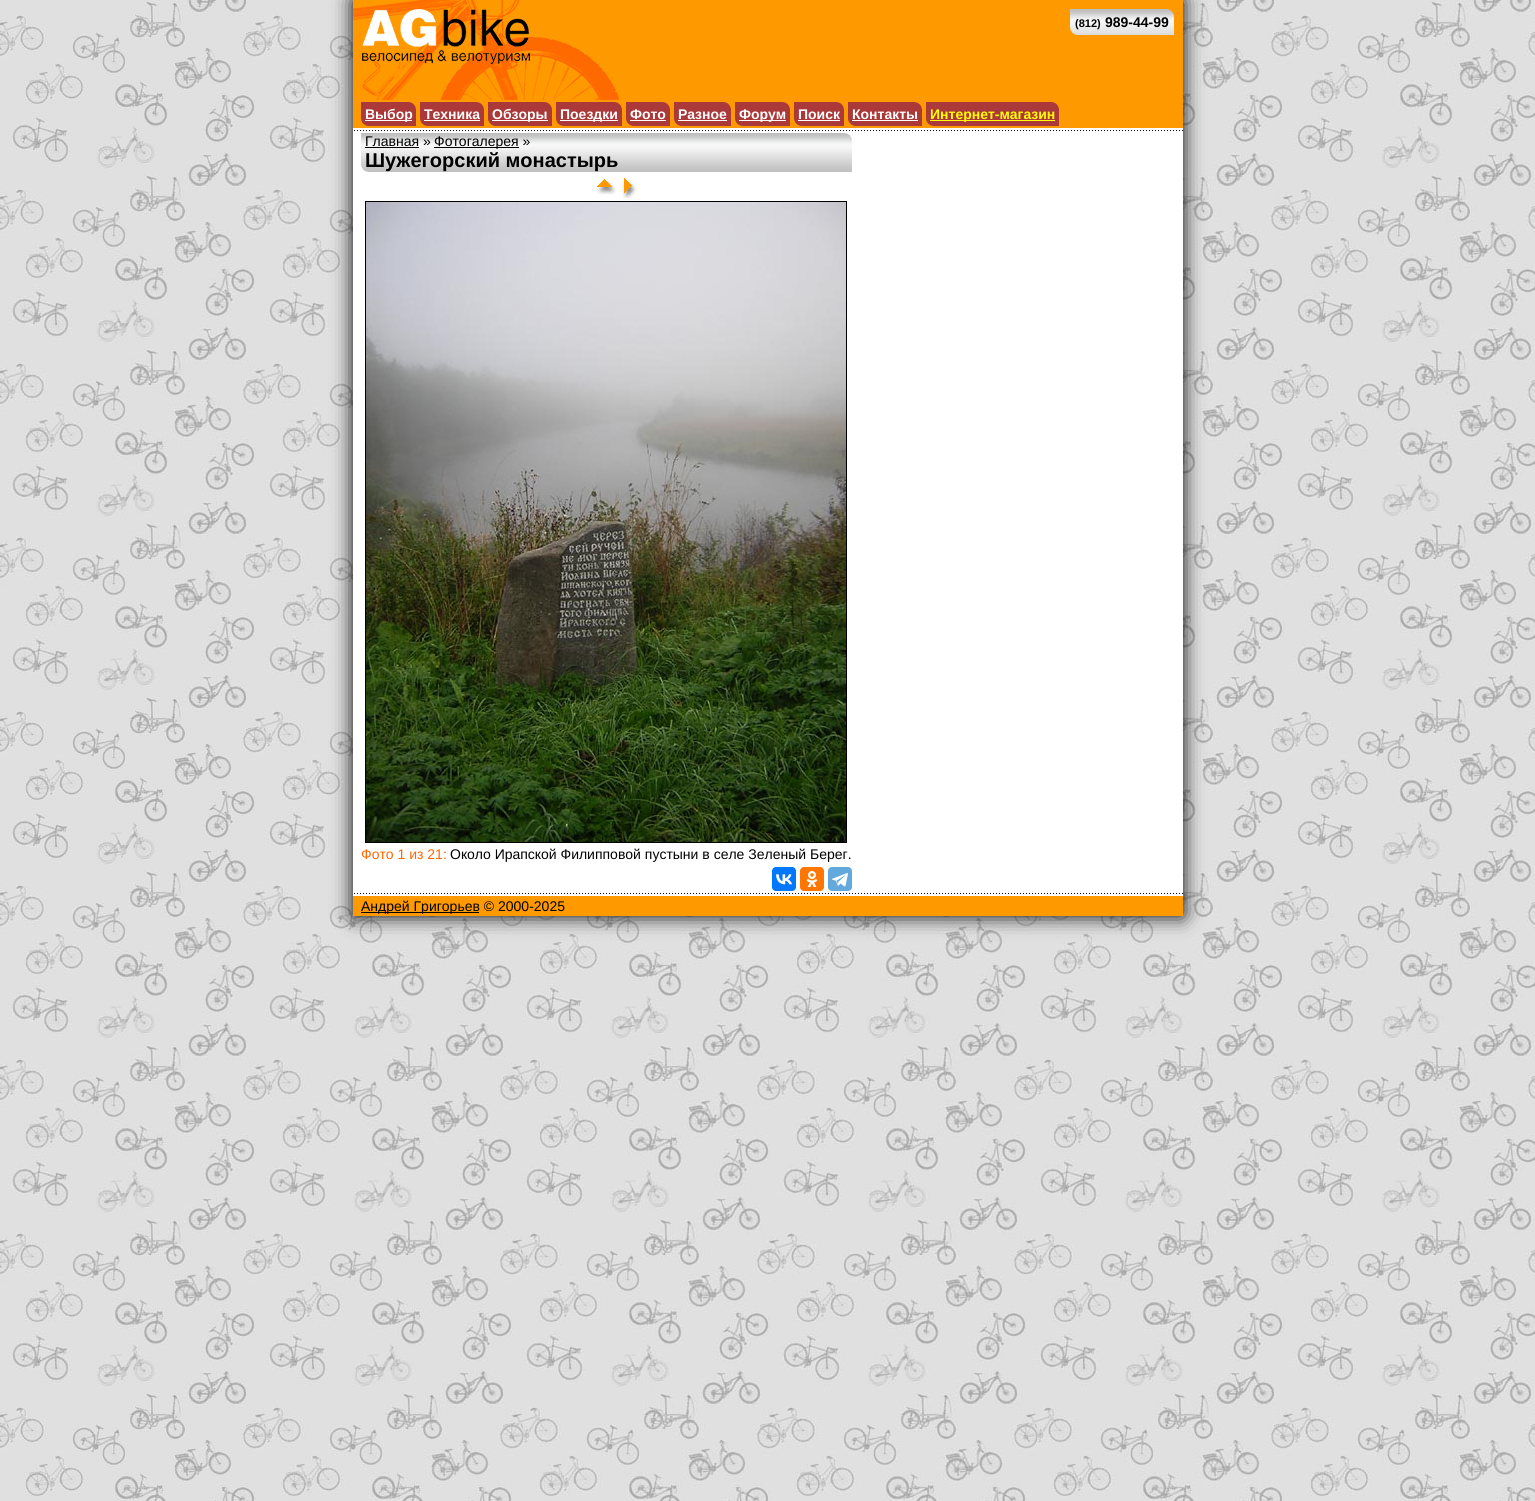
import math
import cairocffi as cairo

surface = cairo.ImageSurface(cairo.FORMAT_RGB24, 1535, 1501)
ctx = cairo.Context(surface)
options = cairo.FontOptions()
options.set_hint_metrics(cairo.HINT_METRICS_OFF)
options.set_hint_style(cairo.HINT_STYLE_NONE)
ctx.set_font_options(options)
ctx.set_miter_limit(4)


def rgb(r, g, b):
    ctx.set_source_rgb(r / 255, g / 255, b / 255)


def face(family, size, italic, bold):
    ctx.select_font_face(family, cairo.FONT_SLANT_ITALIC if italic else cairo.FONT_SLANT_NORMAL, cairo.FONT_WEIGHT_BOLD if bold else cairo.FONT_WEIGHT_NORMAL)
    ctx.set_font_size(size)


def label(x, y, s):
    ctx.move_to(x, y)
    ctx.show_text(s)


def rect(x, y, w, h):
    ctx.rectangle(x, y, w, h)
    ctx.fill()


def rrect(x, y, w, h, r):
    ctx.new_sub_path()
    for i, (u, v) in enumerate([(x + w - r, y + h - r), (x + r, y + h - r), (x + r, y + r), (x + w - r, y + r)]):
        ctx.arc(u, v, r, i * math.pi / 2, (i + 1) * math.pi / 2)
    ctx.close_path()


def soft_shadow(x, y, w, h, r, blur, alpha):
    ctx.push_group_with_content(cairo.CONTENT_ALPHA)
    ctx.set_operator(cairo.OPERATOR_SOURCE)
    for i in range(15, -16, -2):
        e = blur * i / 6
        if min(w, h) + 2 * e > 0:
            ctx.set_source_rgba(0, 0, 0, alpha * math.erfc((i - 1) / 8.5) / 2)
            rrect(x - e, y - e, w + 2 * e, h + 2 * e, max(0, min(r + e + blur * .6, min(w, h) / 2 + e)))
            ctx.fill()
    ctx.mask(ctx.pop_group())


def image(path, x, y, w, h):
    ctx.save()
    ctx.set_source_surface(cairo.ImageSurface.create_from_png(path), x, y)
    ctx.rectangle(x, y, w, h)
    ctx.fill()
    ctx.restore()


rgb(255, 255, 255)
ctx.paint()
image('image0.png', 0, 0, 1535, 1501)
rgb(0, 0, 0)
soft_shadow(353, 0, 830, 916, 0, 10, 1)
rgb(255, 255, 255)
rect(353, 128, 830, 768)
rgb(255, 153, 0)
rect(619, 0, 564, 100)
image('image1.png', 353, 0, 266, 100)
image('image2.png', 1070, 9, 104, 26)
face('Liberation Sans', 11, 0, 1)
rgb(0, 0, 0)
label(1075, 27, '(812)')
face('Liberation Sans', 14, 0, 1)
label(1105, 27, '989-44-99')
rgb(255, 153, 0)
rect(353, 100, 830, 28)
rgb(171, 57, 57)
ctx.new_path()
ctx.move_to(361, 102)
ctx.line_to(408, 102)
ctx.curve_to(412.5, 102, 416, 105.5, 416, 110)
ctx.line_to(416, 126)
ctx.line_to(369, 126)
ctx.curve_to(364.5, 126, 361, 122.5, 361, 118)
ctx.close_path()
ctx.fill()
rgb(255, 255, 255)
rect(365, 120, 47, 1)
label(365, 119, 'Выбор')
rgb(171, 57, 57)
ctx.new_path()
ctx.move_to(420, 102)
ctx.line_to(476, 102)
ctx.curve_to(480.5, 102, 484, 105.5, 484, 110)
ctx.line_to(484, 126)
ctx.line_to(428, 126)
ctx.curve_to(423.5, 126, 420, 122.5, 420, 118)
ctx.close_path()
ctx.fill()
rgb(255, 255, 255)
label(424, 119, 'Техника')
rect(424, 120, 56, 1)
rgb(171, 57, 57)
ctx.new_path()
ctx.move_to(488, 102)
ctx.line_to(544, 102)
ctx.curve_to(548.5, 102, 552, 105.5, 552, 110)
ctx.line_to(552, 126)
ctx.line_to(496, 126)
ctx.curve_to(491.5, 126, 488, 122.5, 488, 118)
ctx.close_path()
ctx.fill()
rgb(255, 255, 255)
rect(492, 120, 56, 1)
label(492, 119, 'Обзоры')
rgb(171, 57, 57)
ctx.new_path()
ctx.move_to(556, 102)
ctx.line_to(614, 102)
ctx.curve_to(618.5, 102, 622, 105.5, 622, 110)
ctx.line_to(622, 126)
ctx.line_to(564, 126)
ctx.curve_to(559.5, 126, 556, 122.5, 556, 118)
ctx.close_path()
ctx.fill()
rgb(255, 255, 255)
rect(560, 120, 58, 1)
label(560, 119, 'Поездки')
rgb(171, 57, 57)
ctx.new_path()
ctx.move_to(626, 102)
ctx.line_to(662, 102)
ctx.curve_to(666.5, 102, 670, 105.5, 670, 110)
ctx.line_to(670, 126)
ctx.line_to(634, 126)
ctx.curve_to(629.5, 126, 626, 122.5, 626, 118)
ctx.close_path()
ctx.fill()
rgb(255, 255, 255)
label(630, 119, 'Фото')
rect(630, 120, 36, 1)
rgb(171, 57, 57)
ctx.new_path()
ctx.move_to(674, 102)
ctx.line_to(723, 102)
ctx.curve_to(727.5, 102, 731, 105.5, 731, 110)
ctx.line_to(731, 126)
ctx.line_to(682, 126)
ctx.curve_to(677.5, 126, 674, 122.5, 674, 118)
ctx.close_path()
ctx.fill()
rgb(255, 255, 255)
label(678, 119, 'Разное')
rect(678, 120, 49, 1)
rgb(171, 57, 57)
ctx.new_path()
ctx.move_to(735, 102)
ctx.line_to(782, 102)
ctx.curve_to(786.5, 102, 790, 105.5, 790, 110)
ctx.line_to(790, 126)
ctx.line_to(743, 126)
ctx.curve_to(738.5, 126, 735, 122.5, 735, 118)
ctx.close_path()
ctx.fill()
rgb(255, 255, 255)
rect(739, 120, 47, 1)
label(739, 119, 'Форум')
rgb(171, 57, 57)
ctx.new_path()
ctx.move_to(794, 102)
ctx.line_to(836, 102)
ctx.curve_to(840.5, 102, 844, 105.5, 844, 110)
ctx.line_to(844, 126)
ctx.line_to(802, 126)
ctx.curve_to(797.5, 126, 794, 122.5, 794, 118)
ctx.close_path()
ctx.fill()
rgb(255, 255, 255)
label(798, 119, 'Поиск')
rect(798, 120, 42, 1)
rgb(171, 57, 57)
ctx.new_path()
ctx.move_to(848, 102)
ctx.line_to(914, 102)
ctx.curve_to(918.5, 102, 922, 105.5, 922, 110)
ctx.line_to(922, 126)
ctx.line_to(856, 126)
ctx.curve_to(851.5, 126, 848, 122.5, 848, 118)
ctx.close_path()
ctx.fill()
rgb(255, 255, 255)
label(852, 119, 'Контакты')
rect(852, 120, 66, 1)
rgb(171, 57, 57)
ctx.new_path()
ctx.move_to(926, 102)
ctx.line_to(1051, 102)
ctx.curve_to(1055.5, 102, 1059, 105.5, 1059, 110)
ctx.line_to(1059, 126)
ctx.line_to(934, 126)
ctx.curve_to(929.5, 126, 926, 122.5, 926, 118)
ctx.close_path()
ctx.fill()
rgb(255, 255, 0)
rect(930, 120, 125, 1)
label(930, 119, 'Интернет-магазин')
image('image3.png', 354, 130, 829, 1)
image('image4.png', 361, 133, 491, 39)
face('Liberation Sans', 14, 0, 0)
rgb(0, 0, 0)
label(365, 146, 'Главная »')
rect(365, 147, 54, 1)
rect(434, 147, 85, 1)
label(434, 146, 'Фотогалерея »')
face('Liberation Sans', 20, 0, 1)
label(365, 167, 'Шужегорский монастырь')
image('image5.png', 597, 179, 19, 16)
image('image6.png', 622, 178, 15, 20)
ctx.rectangle(365.5, 201.5, 481, 641)
ctx.set_line_width(1)
ctx.stroke()
image('image7.png', 366, 202, 480, 640)
face('Liberation Sans', 14, 0, 0)
rgb(255, 102, 0)
label(361, 859, 'Фото 1 из 21:')
rgb(0, 0, 0)
label(450, 859, 'Около Ирапской Филипповой пустыни в селе Зеленый Берег.')
rgb(0, 119, 255)
rrect(772, 867, 24, 24, 4)
ctx.fill()
image('image8.png', 776, 874, 16, 11)
rgb(255, 119, 0)
rrect(800, 867, 24, 24, 4)
ctx.fill()
image('image9.png', 806, 871, 12, 16)
rgb(100, 169, 220)
rrect(828, 867, 24, 24, 4)
ctx.fill()
image('image10.png', 832, 873, 16, 14)
image('image3.png', 354, 893, 829, 1)
rgb(255, 153, 0)
rect(353, 896, 830, 20)
rgb(0, 0, 0)
rect(361, 912, 118, 1)
label(361, 911, 'Андрей Григорьев © 2000-2025')
surface.write_to_png('render.png')
